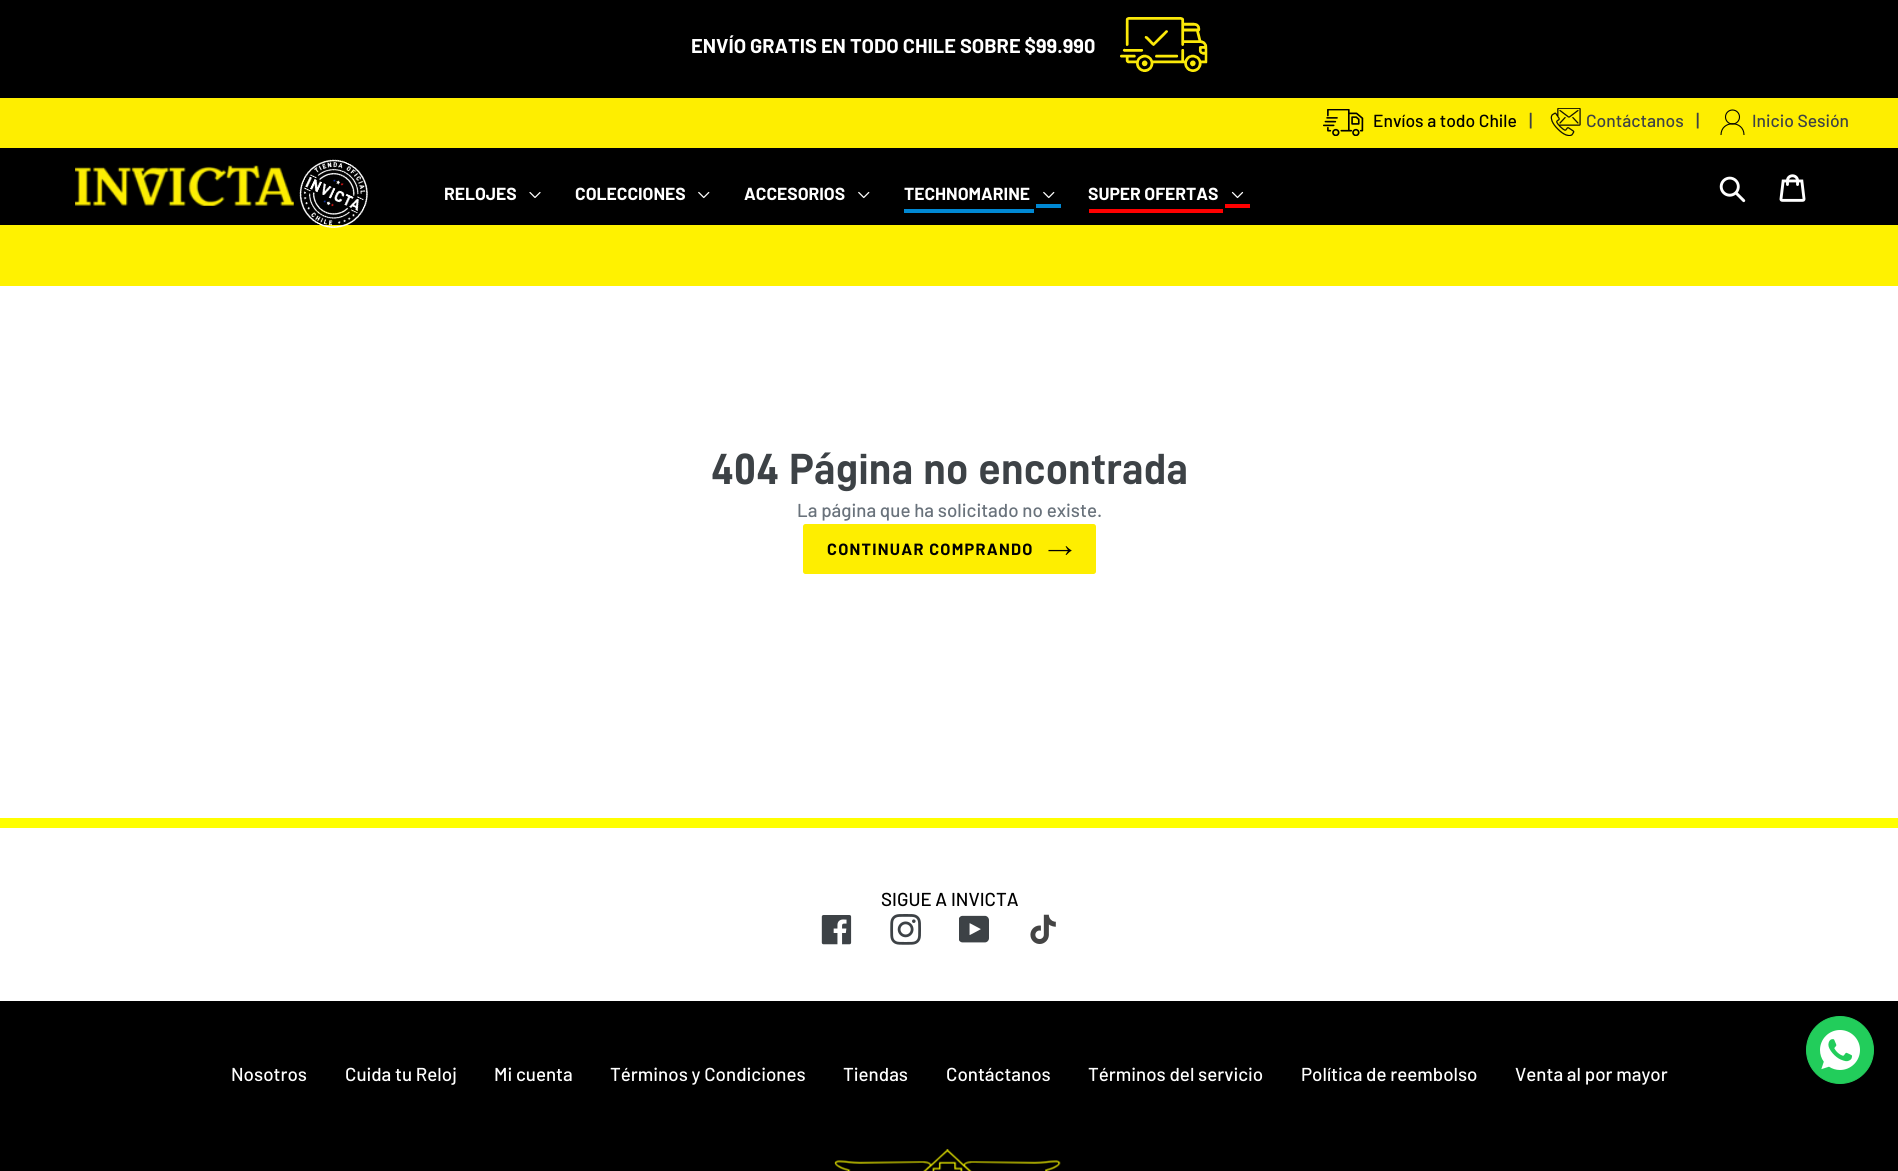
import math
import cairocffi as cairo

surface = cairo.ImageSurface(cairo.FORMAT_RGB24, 1898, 1171)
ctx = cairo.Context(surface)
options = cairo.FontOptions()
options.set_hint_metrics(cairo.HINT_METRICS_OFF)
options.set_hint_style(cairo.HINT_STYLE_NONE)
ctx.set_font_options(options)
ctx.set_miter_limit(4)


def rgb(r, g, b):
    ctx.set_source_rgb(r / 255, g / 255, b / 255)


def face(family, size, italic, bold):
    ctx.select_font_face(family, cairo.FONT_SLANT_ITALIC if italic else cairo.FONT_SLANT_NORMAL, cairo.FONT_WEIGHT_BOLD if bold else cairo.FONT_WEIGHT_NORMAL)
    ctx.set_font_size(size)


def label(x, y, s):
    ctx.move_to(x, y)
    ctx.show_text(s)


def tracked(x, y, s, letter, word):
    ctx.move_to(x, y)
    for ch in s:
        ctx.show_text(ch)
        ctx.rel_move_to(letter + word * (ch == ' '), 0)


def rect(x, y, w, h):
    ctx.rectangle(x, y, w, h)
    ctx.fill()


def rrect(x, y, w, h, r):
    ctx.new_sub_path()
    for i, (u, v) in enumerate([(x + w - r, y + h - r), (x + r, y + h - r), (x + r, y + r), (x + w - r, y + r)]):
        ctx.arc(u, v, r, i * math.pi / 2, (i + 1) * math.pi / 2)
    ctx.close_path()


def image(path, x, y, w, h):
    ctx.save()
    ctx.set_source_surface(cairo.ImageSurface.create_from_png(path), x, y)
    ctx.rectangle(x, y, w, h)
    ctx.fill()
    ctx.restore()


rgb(255, 255, 255)
ctx.paint()
rgb(0, 0, 0)
rect(0, 0, 1898, 98)
face('Barlow', 20, 0, 1)
rgb(255, 255, 255)
label(691, 53, 'ENVÍO GRATIS EN TODO CHILE SOBRE $99.990')
image('image0.png', 1120, 17, 88, 55)
rgb(254, 238, 0)
rect(0, 98, 1898, 50)
image('image1.png', 1323, 109, 41, 27)
face('Barlow Medium', 17.5, 0, 0)
rgb(0, 0, 0)
label(1373, 127, 'Envíos a todo Chile')
face('Barlow Medium', 18.75, 0, 0)
rgb(61, 66, 70)
label(1529, 127, '|')
image('image2.png', 1550, 108, 31, 28)
face('Barlow Medium', 17.5, 0, 0)
label(1586, 127, 'Contáctanos')
face('Barlow Medium', 18.75, 0, 0)
label(1696, 127, '|')
face('Barlow Medium', 17.5, 0, 0)
label(1752, 127, 'Inicio Sesión')
ctx.new_path()
ctx.arc(1732.5, 117, 7, 0, 2 * math.pi)
rgb(2, 2, 3)
ctx.set_line_width(1.1)
ctx.stroke()
ctx.new_path()
ctx.move_to(1721, 135)
ctx.curve_to(1721, 120, 1744, 120, 1744, 135)
ctx.stroke()
rgb(0, 0, 0)
rect(0, 148, 1898, 77)
image('image3.png', 75, 165, 219, 41)
rgb(255, 242, 0)
rect(0, 225, 1898, 61)
image('image4.png', 299, 159, 69, 70)
face('Barlow', 17.5, 0, 1)
rgb(255, 255, 255)
label(444, 200, 'RELOJES')
image('image5.png', 529, 192, 12, 6)
label(575, 200, 'COLECCIONES')
image('image6.png', 698, 191, 12, 8)
label(744, 200, 'ACCESORIOS')
image('image6.png', 858, 191, 12, 8)
rgb(0, 136, 211)
rect(904, 209, 130, 4)
rect(1036, 204, 25, 4)
rgb(255, 255, 255)
label(904, 200, 'TECHNOMARINE')
image('image6.png', 1043, 191, 12, 8)
rgb(255, 0, 0)
rect(1089, 209, 134, 4)
rect(1225, 204, 25, 4)
rgb(255, 255, 255)
label(1088, 200, 'SUPER OFERTAS')
image('image7.png', 1231, 191, 13, 8)
image('image8.png', 1719, 176, 27, 27)
image('image9.png', 1779, 174, 27, 28)
face('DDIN', 43.75, 0, 1)
rgb(61, 66, 70)
label(711, 484, '404 Página no encontrada')
face('Barlow Medium', 18.75, 0, 0)
rgb(105, 114, 123)
label(797, 517, 'La página que ha solicitado no existe.')
rgb(254, 238, 0)
rrect(803, 524, 293, 50, 2.5)
ctx.fill()
face('Barlow', 16.25, 0, 1)
rgb(0, 0, 0)
tracked(827, 555, 'CONTINUAR COMPRANDO', 1.25, 0)
image('image10.png', 1048, 546, 24, 9)
rect(0, 1001, 1898, 170)
rgb(255, 255, 0)
rect(0, 818, 1898, 10)
face('Barlow Medium', 18.75, 0, 0)
rgb(0, 0, 0)
label(881, 906, 'SIGUE A INVICTA')
image('image11.png', 821, 915, 31, 30)
image('image12.png', 890, 914, 31, 31)
image('image13.png', 959, 915, 30, 28)
image('image14.png', 1030, 914, 26, 30)
rgb(255, 255, 255)
label(231, 1081, 'Nosotros')
label(345, 1081, 'Cuida tu Reloj')
label(494, 1081, 'Mi cuenta')
label(610, 1081, 'Términos y Condiciones')
label(843, 1081, 'Tiendas')
label(946, 1081, 'Contáctanos')
label(1088, 1081, 'Términos del servicio')
label(1301, 1081, 'Política de reembolso')
label(1515, 1081, 'Venta al por mayor')
image('image15.png', 834, 1149, 227, 22)
rgb(34, 205, 91)
ctx.arc(1840, 1050, 33.5, 0, 2 * math.pi)
ctx.fill_preserve()
ctx.set_line_width(1)
ctx.stroke()
image('image16.png', 1820, 1030, 40, 40)
surface.write_to_png('render.png')
